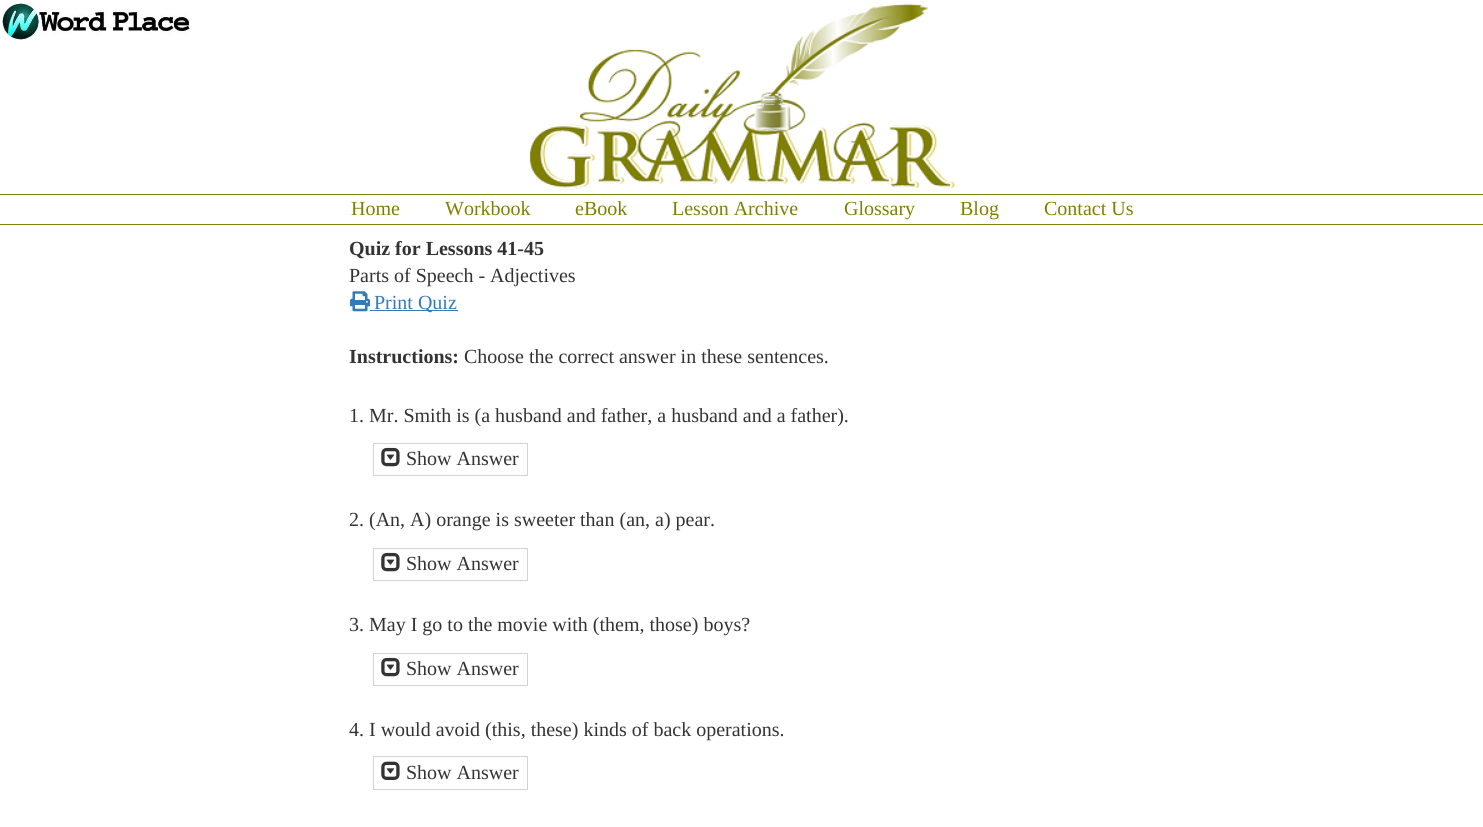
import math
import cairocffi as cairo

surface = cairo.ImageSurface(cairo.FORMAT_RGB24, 1483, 827)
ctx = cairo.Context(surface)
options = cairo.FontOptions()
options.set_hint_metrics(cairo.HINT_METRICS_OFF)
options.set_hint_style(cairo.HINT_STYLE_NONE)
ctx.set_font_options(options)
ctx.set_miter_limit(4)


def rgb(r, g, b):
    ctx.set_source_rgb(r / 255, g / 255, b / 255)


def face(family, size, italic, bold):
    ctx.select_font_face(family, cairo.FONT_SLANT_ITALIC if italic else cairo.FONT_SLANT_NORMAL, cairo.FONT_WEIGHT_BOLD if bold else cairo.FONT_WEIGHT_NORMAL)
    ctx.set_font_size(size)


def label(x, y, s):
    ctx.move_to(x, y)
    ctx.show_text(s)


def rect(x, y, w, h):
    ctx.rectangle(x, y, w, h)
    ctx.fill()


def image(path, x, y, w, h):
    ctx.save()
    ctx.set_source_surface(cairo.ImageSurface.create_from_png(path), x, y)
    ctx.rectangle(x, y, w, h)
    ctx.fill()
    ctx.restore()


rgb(255, 255, 255)
ctx.paint()
image('image0.png', 2, 2, 188, 38)
image('image1.png', 529, 3, 426, 187)
rgb(128, 128, 0)
rect(0, 194, 1483, 1)
rect(0, 224, 1483, 1)
face('Liberation Serif', 20, 0, 0)
label(351, 215, 'Home')
label(445, 215, 'Workbook')
label(575, 215, 'eBook')
label(672, 215, 'Lesson Archive')
label(844, 215, 'Glossary')
label(960, 215, 'Blog')
label(1044, 215, 'Contact Us')
face('Liberation Serif', 20, 0, 1)
rgb(51, 51, 51)
label(349, 255, 'Quiz for Lessons 41-45')
face('Liberation Serif', 20, 0, 0)
label(349, 282, 'Parts of Speech - Adjectives')
image('image2.png', 350, 291, 20, 21)
rgb(51, 122, 183)
rect(370, 310, 88, 1)
label(374, 309, 'Print Quiz')
face('Liberation Serif', 20, 0, 1)
rgb(51, 51, 51)
label(349, 363, 'Instructions:')
face('Liberation Serif', 20, 0, 0)
label(464, 363, 'Choose the correct answer in these sentences.')
label(349, 422, '1. Mr. Smith is (a husband and father, a husband and a father).')
ctx.rectangle(373.5, 443.5, 154, 32)
rgb(211, 211, 211)
ctx.set_line_width(1)
ctx.stroke()
image('image3.png', 381, 447, 19, 20)
rgb(51, 51, 51)
label(406, 465, 'Show Answer')
label(349, 526, '2. (An, A) orange is sweeter than (an, a) pear.')
ctx.rectangle(373.5, 548.5, 154, 32)
rgb(211, 211, 211)
ctx.stroke()
image('image3.png', 381, 552, 19, 20)
rgb(51, 51, 51)
label(406, 570, 'Show Answer')
label(349, 631, '3. May I go to the movie with (them, those) boys?')
ctx.rectangle(373.5, 653.5, 154, 32)
rgb(211, 211, 211)
ctx.stroke()
image('image3.png', 381, 657, 19, 20)
rgb(51, 51, 51)
label(406, 675, 'Show Answer')
label(349, 736, '4. I would avoid (this, these) kinds of back operations.')
ctx.rectangle(373.5, 756.5, 154, 33)
rgb(211, 211, 211)
ctx.stroke()
image('image4.png', 381, 761, 19, 19)
rgb(51, 51, 51)
label(406, 779, 'Show Answer')
surface.write_to_png('render.png')
